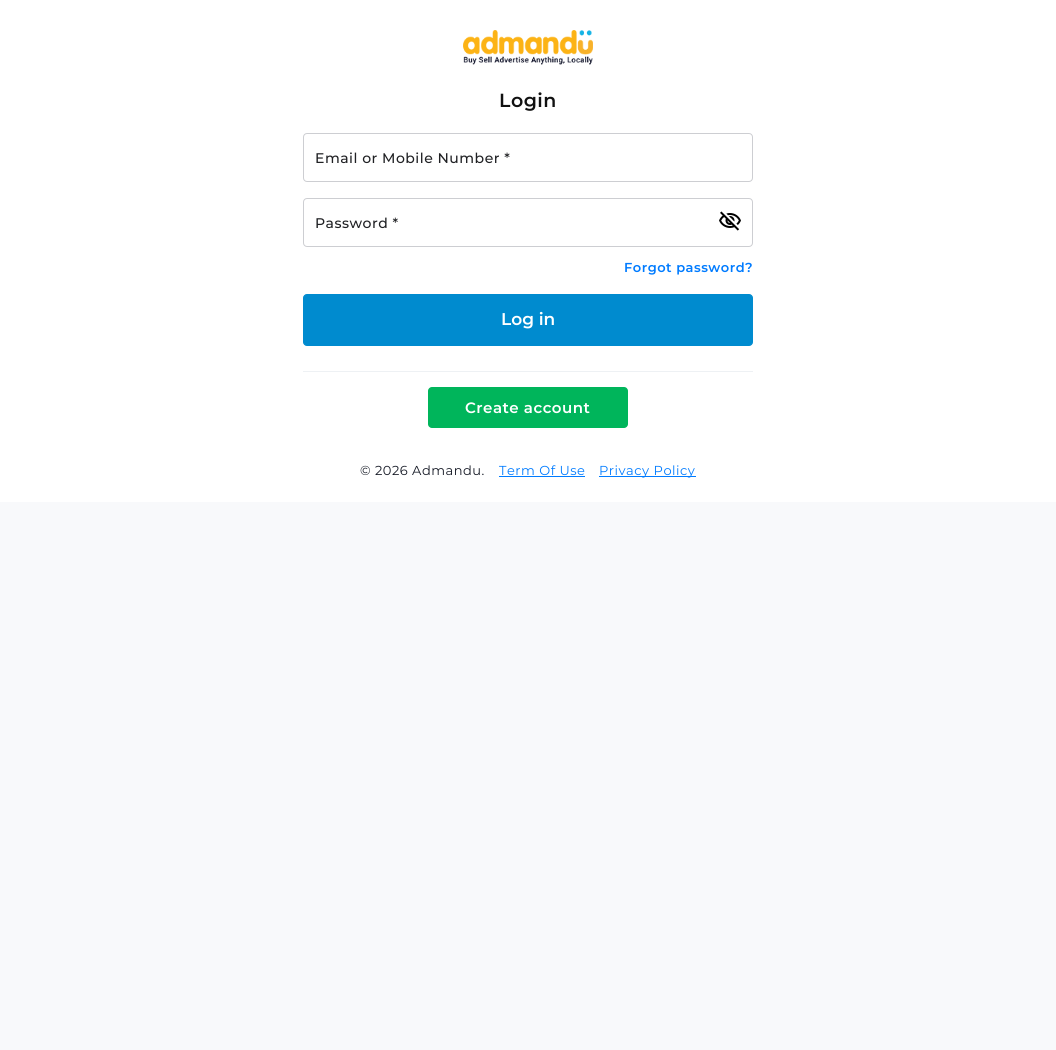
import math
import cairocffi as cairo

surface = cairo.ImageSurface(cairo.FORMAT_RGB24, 1056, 1050)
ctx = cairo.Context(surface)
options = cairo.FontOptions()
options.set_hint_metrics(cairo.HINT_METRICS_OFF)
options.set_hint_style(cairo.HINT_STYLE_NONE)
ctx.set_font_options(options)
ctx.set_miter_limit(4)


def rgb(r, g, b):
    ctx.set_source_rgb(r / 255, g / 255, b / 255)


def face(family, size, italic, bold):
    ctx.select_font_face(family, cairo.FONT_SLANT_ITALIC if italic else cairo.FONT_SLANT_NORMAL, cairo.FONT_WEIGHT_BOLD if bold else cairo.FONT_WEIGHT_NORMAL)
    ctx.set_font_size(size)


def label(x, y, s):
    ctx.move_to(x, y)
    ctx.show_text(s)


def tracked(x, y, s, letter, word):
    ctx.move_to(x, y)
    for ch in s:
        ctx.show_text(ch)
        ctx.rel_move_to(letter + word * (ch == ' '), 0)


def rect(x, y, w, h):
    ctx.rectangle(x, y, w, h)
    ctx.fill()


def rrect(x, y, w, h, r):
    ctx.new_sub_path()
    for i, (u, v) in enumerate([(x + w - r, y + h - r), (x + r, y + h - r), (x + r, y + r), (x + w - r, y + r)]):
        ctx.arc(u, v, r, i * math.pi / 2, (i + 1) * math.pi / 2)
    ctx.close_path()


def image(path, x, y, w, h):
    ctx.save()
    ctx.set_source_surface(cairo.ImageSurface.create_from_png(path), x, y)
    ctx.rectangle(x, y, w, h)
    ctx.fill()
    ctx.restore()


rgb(248, 249, 251)
ctx.paint()
rgb(255, 255, 255)
rect(0, 0, 1056, 502)
image('image0.png', 463, 30, 130, 35)
face('Montserrat SemiBold', 19, 0, 0)
rgb(17, 17, 17)
tracked(499, 107, 'Login', 0.5, 0)
rrect(303.5, 133.5, 449, 48, 3.5)
rgb(205, 206, 210)
ctx.set_line_width(1)
ctx.stroke()
face('Montserrat Medium', 14, 0, 0)
rgb(32, 33, 36)
tracked(315, 163, 'Email or Mobile Number *', 0.5, 0)
rrect(303.5, 198.5, 449, 48, 3.5)
rgb(205, 206, 210)
ctx.stroke()
rgb(32, 33, 36)
tracked(315, 228, 'Password *', 0.5, 0)
image('image1.png', 719, 211, 22, 20)
face('Montserrat SemiBold', 13, 0, 0)
rgb(0, 123, 255)
tracked(624, 272, 'Forgot password?', 0.5, 0)
rgb(0, 139, 207)
rrect(303.5, 294.5, 449, 51, 3.5)
ctx.fill_preserve()
ctx.stroke()
face('Montserrat SemiBold', 17, 0, 0)
rgb(255, 255, 255)
label(501, 325, 'Log in')
rgb(238, 241, 244)
rect(303, 371, 450, 1)
rgb(0, 181, 91)
rrect(428, 387, 200, 41, 4)
ctx.fill()
face('Montserrat SemiBold', 15, 0, 0)
rgb(255, 255, 255)
tracked(465, 413, 'Create account', 0.5, 0)
face('Montserrat', 13, 0, 0)
rgb(20, 24, 36)
tracked(360, 475, '© 2026 Admandu.', 0.5, 0)
rgb(0, 123, 255)
tracked(499, 475, 'Term Of Use', 0.5, 0)
rect(499, 476, 86, 1)
rect(599, 476, 97, 1)
tracked(599, 475, 'Privacy Policy', 0.5, 0)
surface.write_to_png('render.png')
